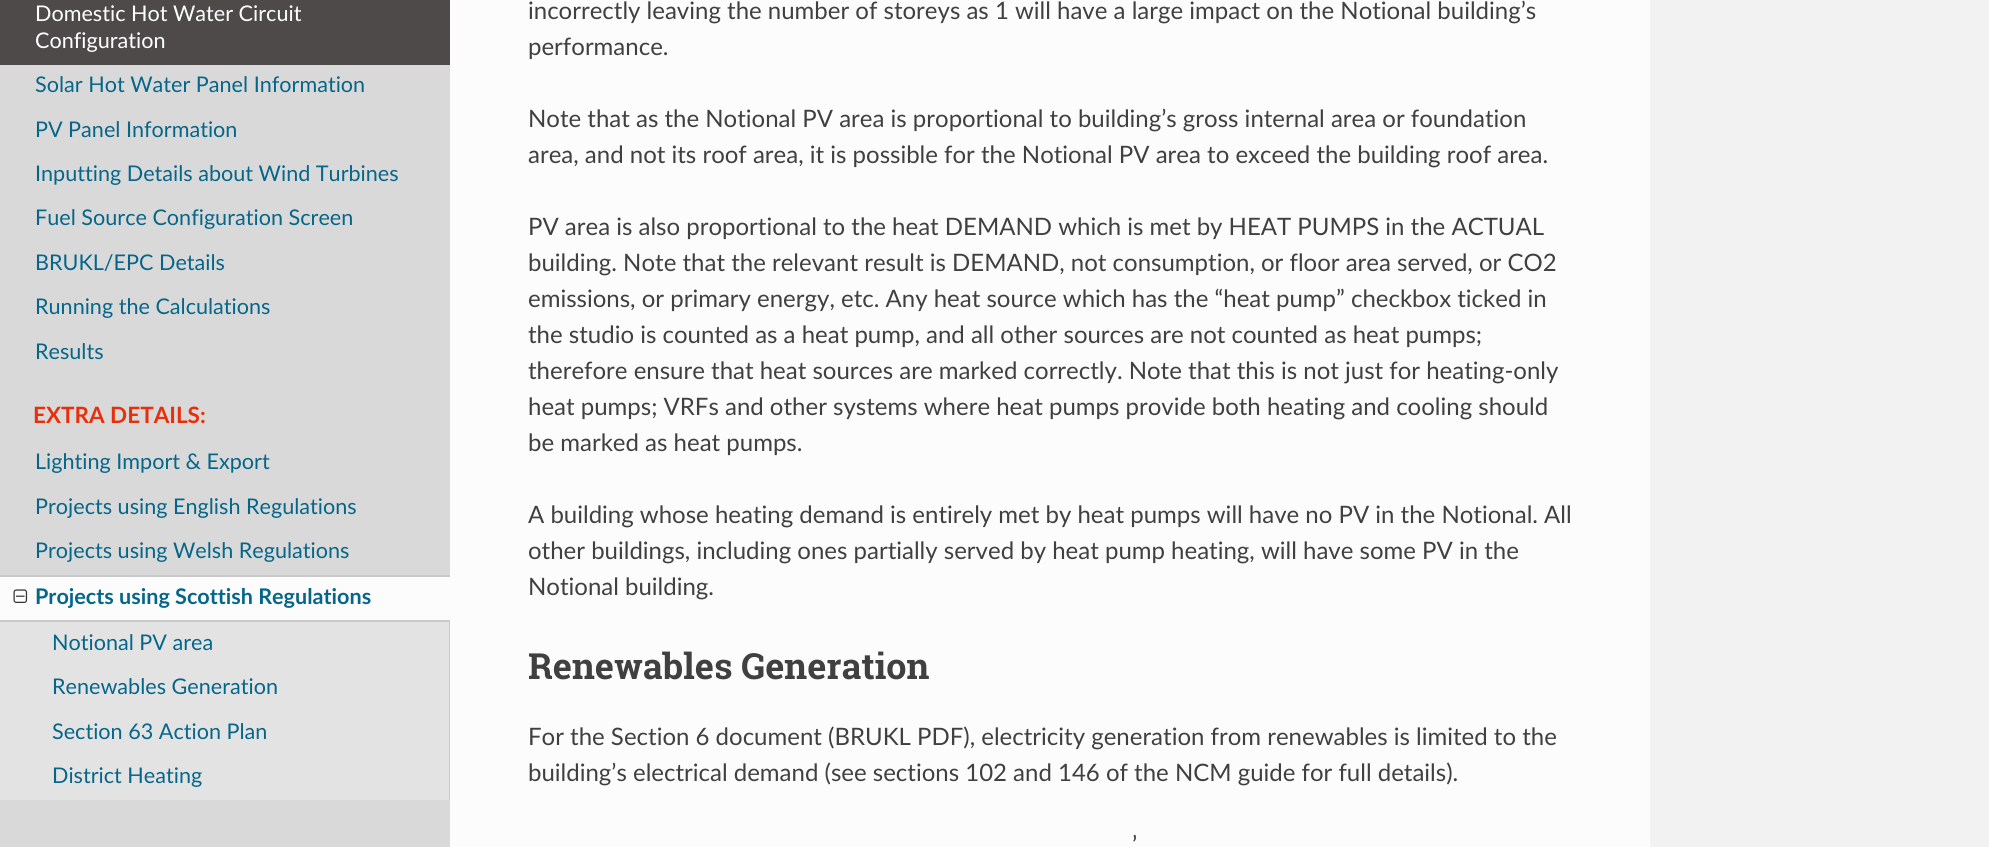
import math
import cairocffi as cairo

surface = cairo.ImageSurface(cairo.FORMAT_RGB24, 1989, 847)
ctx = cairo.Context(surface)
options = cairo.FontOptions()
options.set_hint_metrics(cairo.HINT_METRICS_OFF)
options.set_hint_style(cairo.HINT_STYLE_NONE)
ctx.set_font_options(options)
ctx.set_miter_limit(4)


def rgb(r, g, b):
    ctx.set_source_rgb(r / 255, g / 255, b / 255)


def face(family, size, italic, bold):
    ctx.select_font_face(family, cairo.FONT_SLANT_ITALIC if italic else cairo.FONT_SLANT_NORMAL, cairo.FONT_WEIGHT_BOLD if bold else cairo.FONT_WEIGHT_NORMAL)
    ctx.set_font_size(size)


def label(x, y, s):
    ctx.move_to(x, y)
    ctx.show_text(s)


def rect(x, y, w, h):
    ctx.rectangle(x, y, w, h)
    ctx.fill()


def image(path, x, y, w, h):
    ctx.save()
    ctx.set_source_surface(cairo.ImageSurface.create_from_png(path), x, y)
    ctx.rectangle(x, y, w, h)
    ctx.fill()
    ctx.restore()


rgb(242, 242, 242)
ctx.paint()
rgb(217, 217, 217)
rect(0, 65, 450, 782)
rgb(78, 74, 74)
rect(0, 0, 450, 65)
face('Lato', 21.6, 0, 0)
rgb(255, 255, 255)
label(35, 21, 'Domestic Hot Water Circuit')
label(35, 48, 'Configuration')
rgb(6, 102, 137)
label(35, 92, 'Solar Hot Water Panel Information')
label(35, 137, 'PV Panel Information')
label(35, 181, 'Inputting Details about Wind Turbines')
label(35, 225, 'Fuel Source Configuration Screen')
label(35, 270, 'BRUKL/EPC Details')
label(35, 314, 'Running the Calculations')
label(35, 359, 'Results')
face('Lato', 22.5, 0, 1)
rgb(232, 47, 11)
label(33, 423, 'EXTRA DETAILS:')
face('Lato', 21.6, 0, 0)
rgb(6, 102, 137)
label(35, 469, 'Lighting Import & Export')
label(35, 514, 'Projects using English Regulations')
label(35, 558, 'Projects using Welsh Regulations')
rgb(227, 227, 227)
rect(0, 622, 449, 178)
rgb(252, 252, 252)
rect(0, 577, 450, 43)
rgb(201, 201, 201)
rect(0, 575, 450, 2)
rect(0, 620, 450, 2)
image('image0.png', 13, 589, 15, 14)
face('Lato', 21.6, 0, 1)
rgb(6, 102, 137)
label(35, 604, 'Projects using Scottish Regulations')
rgb(201, 201, 201)
rect(449, 621, 1, 179)
face('Lato', 21.6, 0, 0)
rgb(6, 102, 137)
label(52, 650, 'Notional PV area')
label(52, 694, 'Renewables Generation')
label(52, 739, 'Section 63 Action Plan')
label(52, 783, 'District Heating')
rgb(252, 252, 252)
rect(450, 0, 1200, 847)
face('Lato', 24, 0, 0)
rgb(64, 64, 64)
label(528, 19, 'incorrectly leaving the number of storeys as 1 will have a large impact on the Notional building’s')
label(528, 55, 'performance.')
label(528, 127, 'Note that as the Notional PV area is proportional to building’s gross internal area or foundation')
label(528, 163, 'area, and not its roof area, it is possible for the Notional PV area to exceed the building roof area.')
label(528, 235, 'PV area is also proportional to the heat DEMAND which is met by HEAT PUMPS in the ACTUAL')
label(528, 271, 'building. Note that the relevant result is DEMAND, not consumption, or floor area served, or CO2')
label(528, 307, 'emissions, or primary energy, etc. Any heat source which has the “heat pump” checkbox ticked in')
label(528, 343, 'the studio is counted as a heat pump, and all other sources are not counted as heat pumps;')
label(528, 379, 'therefore ensure that heat sources are marked correctly. Note that this is not just for heating-only')
label(528, 415, 'heat pumps; VRFs and other systems where heat pumps provide both heating and cooling should')
label(528, 451, 'be marked as heat pumps.')
label(528, 523, 'A building whose heating demand is entirely met by heat pumps will have no PV in the Notional. All')
label(528, 559, 'other buildings, including ones partially served by heat pump heating, will have some PV in the')
label(528, 595, 'Notional building.')
face('Roboto Slab', 36, 0, 1)
label(528, 679, 'Renewables Generation')
face('Lato', 24, 0, 0)
label(528, 745, 'For the Section 6 document (BRUKL PDF), electricity generation from renewables is limited to the')
label(528, 781, 'building’s electrical demand (see sections 102 and 146 of the NCM guide for full details).')
label(1132, 853, '’')
surface.write_to_png('render.png')
